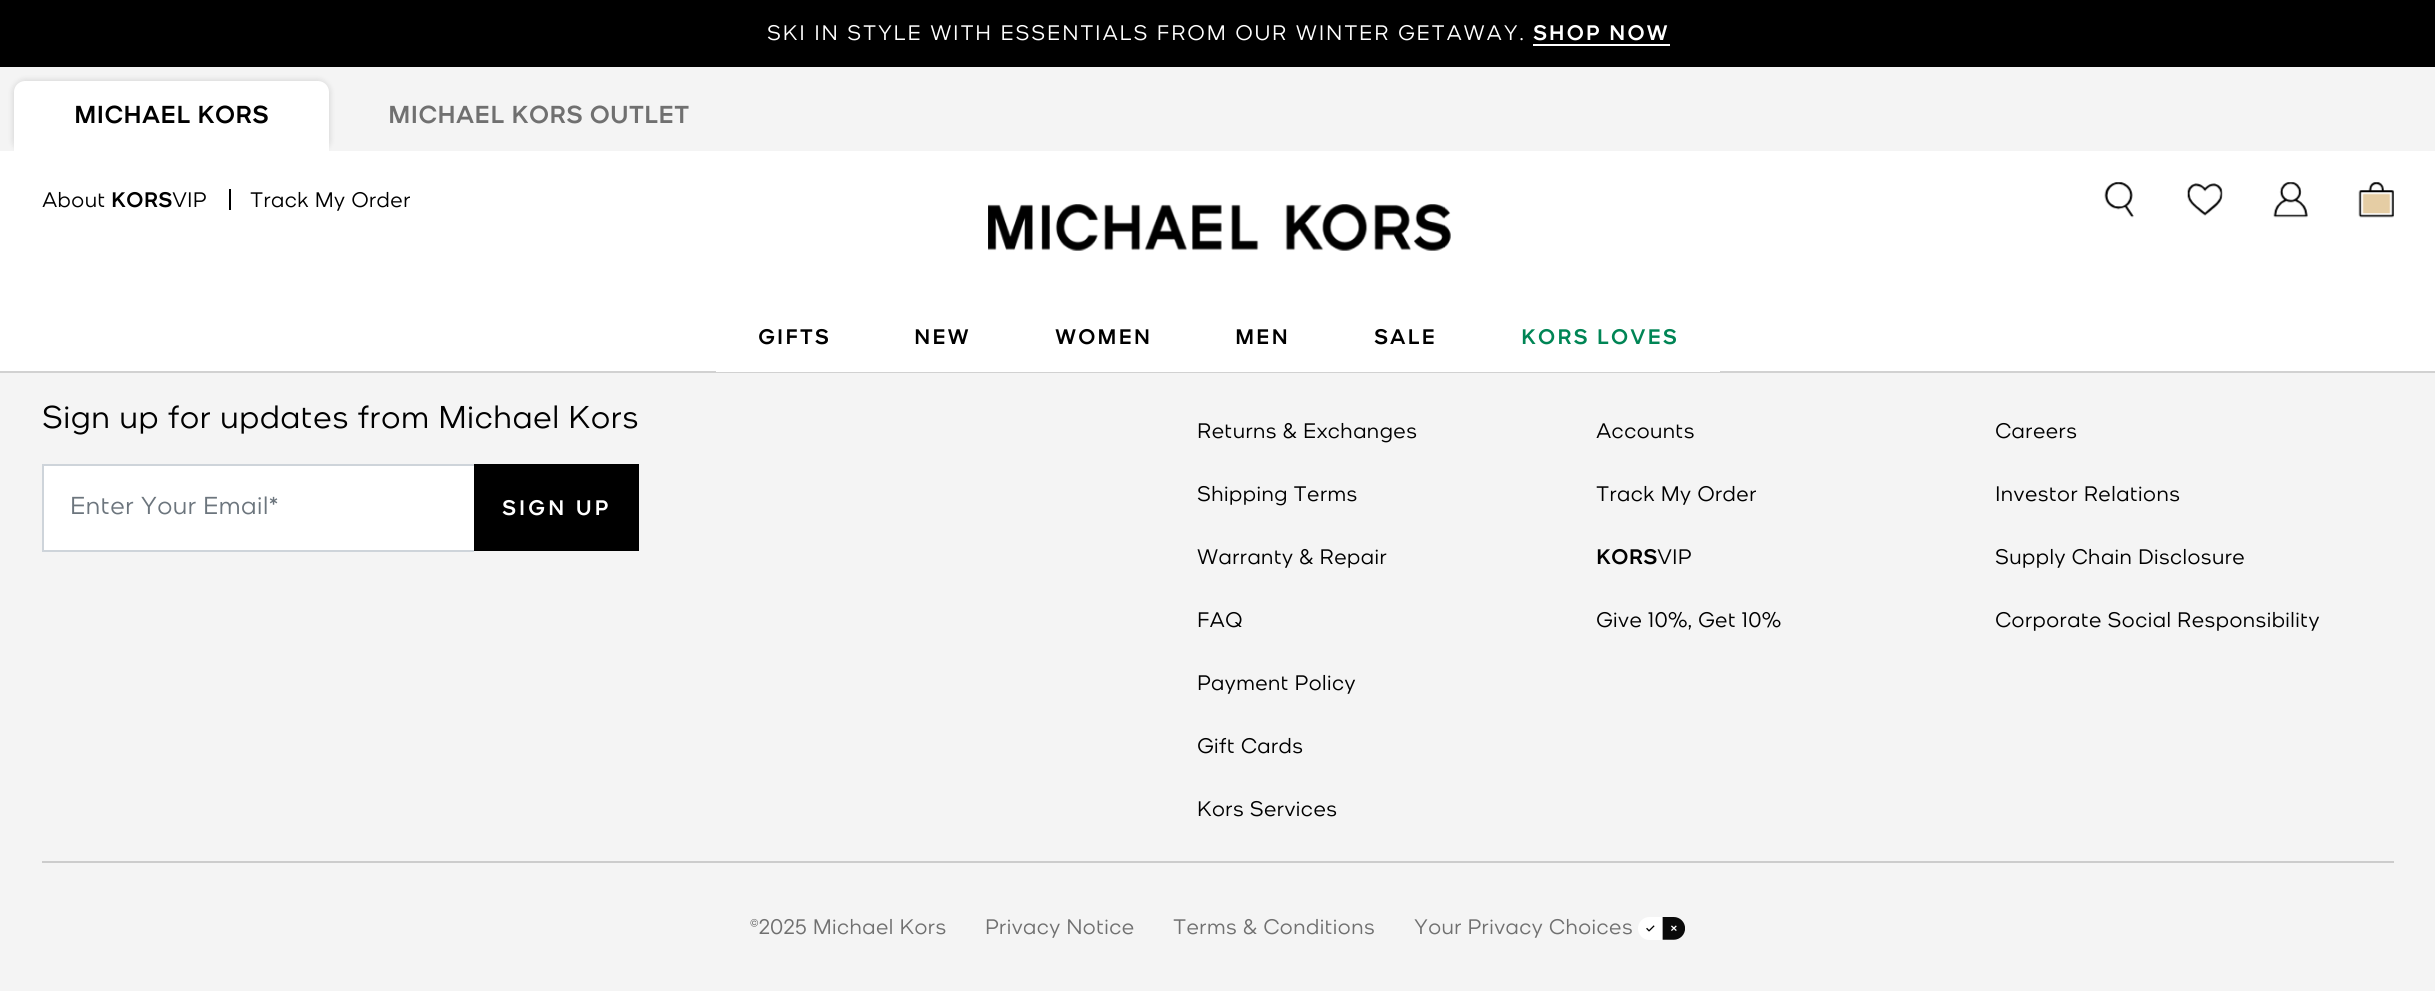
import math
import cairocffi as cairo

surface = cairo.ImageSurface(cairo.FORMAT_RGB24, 2435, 991)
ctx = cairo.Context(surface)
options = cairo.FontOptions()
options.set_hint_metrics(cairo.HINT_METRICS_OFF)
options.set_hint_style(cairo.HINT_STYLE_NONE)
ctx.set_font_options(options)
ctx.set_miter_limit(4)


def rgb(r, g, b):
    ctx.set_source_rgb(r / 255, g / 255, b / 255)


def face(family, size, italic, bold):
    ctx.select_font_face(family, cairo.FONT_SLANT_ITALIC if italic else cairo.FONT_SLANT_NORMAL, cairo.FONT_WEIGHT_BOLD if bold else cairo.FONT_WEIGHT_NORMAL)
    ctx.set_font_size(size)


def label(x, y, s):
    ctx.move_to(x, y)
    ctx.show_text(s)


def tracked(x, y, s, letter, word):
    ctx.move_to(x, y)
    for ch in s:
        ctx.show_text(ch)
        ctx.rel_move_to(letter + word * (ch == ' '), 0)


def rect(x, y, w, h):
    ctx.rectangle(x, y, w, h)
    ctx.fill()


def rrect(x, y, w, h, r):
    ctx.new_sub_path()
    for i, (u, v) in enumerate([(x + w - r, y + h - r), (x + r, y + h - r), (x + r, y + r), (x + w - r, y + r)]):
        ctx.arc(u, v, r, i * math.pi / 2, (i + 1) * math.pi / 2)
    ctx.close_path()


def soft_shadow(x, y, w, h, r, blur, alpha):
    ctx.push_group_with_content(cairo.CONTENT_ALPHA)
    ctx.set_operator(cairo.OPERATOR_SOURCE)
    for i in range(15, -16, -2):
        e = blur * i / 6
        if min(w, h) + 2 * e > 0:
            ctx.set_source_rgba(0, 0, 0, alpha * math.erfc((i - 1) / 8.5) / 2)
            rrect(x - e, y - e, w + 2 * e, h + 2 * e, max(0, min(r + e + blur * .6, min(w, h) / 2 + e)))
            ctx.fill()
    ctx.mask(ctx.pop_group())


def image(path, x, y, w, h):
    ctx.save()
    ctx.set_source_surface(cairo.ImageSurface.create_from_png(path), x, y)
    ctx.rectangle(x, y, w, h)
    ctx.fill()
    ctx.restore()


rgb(244, 244, 244)
ctx.paint()
rgb(255, 255, 255)
rect(0, 151, 2435, 220)
rgb(209, 209, 209)
rect(0, 371, 2435, 2)
rgb(0, 0, 0)
rect(0, 0, 2435, 67)
face('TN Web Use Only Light', 21, 0, 0)
rgb(255, 255, 255)
tracked(767, 40, 'SKI IN STYLE WITH ESSENTIALS FROM OUR WINTER GETAWAY.', 1.75, 0)
face('TN Web Use Only Medium', 21, 0, 0)
tracked(1533, 40, 'SHOP NOW', 1.75, 0)
rect(1533, 44, 137, 2)
ctx.save()
ctx.rectangle(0, 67, 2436, 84)
ctx.clip()
rgb(0, 0, 0)
soft_shadow(14, 81, 315, 70, 11, 3.5, 0.16)
ctx.restore()
ctx.new_path()
ctx.move_to(25, 81)
ctx.line_to(318, 81)
ctx.curve_to(324, 81, 329, 86, 329, 92)
ctx.line_to(329, 151)
ctx.line_to(14, 151)
ctx.line_to(14, 92)
ctx.curve_to(14, 86, 19, 81, 25, 81)
ctx.close_path()
ctx.fill()
face('TN Web Use Only Medium', 24.5, 0, 0)
rgb(0, 0, 0)
label(74, 123, 'MICHAEL KORS')
rgb(112, 112, 112)
label(388, 123, 'MICHAEL KORS OUTLET')
face('TN Web Use Only Light', 21, 0, 0)
rgb(0, 0, 0)
label(42, 207, 'About')
face('TN Web Use Only Medium', 21, 0, 0)
label(111, 207, 'KORS')
face('TN Web Use Only Light', 21, 0, 0)
label(172, 207, 'VIP')
rect(229, 189, 2, 21)
label(250, 207, 'Track My Order')
image('image0.png', 2104, 182, 30, 36)
image('image1.png', 2187, 183, 36, 33)
image('image2.png', 2273, 182, 35, 36)
image('image3.png', 2358, 182, 36, 36)
image('image4.png', 988, 204, 463, 47)
rgb(255, 255, 255)
rect(716, 371, 1004, 1)
face('TN Web Use Only Medium', 21, 0, 0)
rgb(0, 0, 0)
tracked(758, 344, 'GIFTS', 1.75, 0)
tracked(914, 344, 'NEW', 1.75, 0)
tracked(1055, 344, 'WOMEN', 1.75, 0)
tracked(1235, 344, 'MEN', 1.75, 0)
tracked(1374, 344, 'SALE', 1.75, 0)
rgb(0, 133, 85)
tracked(1521, 344, 'KORS LOVES', 1.75, 0)
face('TN Web Use Only Light', 31.5, 0, 0)
rgb(0, 0, 0)
label(42, 428, 'Sign up for updates from Michael Kors')
rgb(255, 255, 255)
rect(44, 466, 430, 84)
rgb(206, 212, 218)
rect(42, 464, 432, 2)
rect(42, 550, 432, 2)
rect(42, 464, 2, 87)
face('TN Web Use Only Light', 24.5, 0, 0)
rgb(108, 117, 125)
label(70, 514, 'Enter Your Email*')
rgb(0, 0, 0)
rect(474, 464, 165, 87)
face('TN Web Use Only Medium', 21, 0, 0)
rgb(255, 255, 255)
tracked(502, 515, 'SIGN UP', 2.75, 0)
face('TN Web Use Only Light', 21, 0, 0)
rgb(0, 0, 0)
label(1197, 438, 'Returns & Exchanges')
label(1197, 501, 'Shipping Terms')
label(1197, 564, 'Warranty & Repair')
label(1197, 627, 'FAQ')
label(1197, 690, 'Payment Policy')
label(1197, 753, 'Gift Cards')
label(1197, 816, 'Kors Services')
label(1596, 438, 'Accounts')
label(1596, 501, 'Track My Order')
face('TN Web Use Only Medium', 21, 0, 0)
label(1596, 564, 'KORS')
face('TN Web Use Only Light', 21, 0, 0)
label(1657, 564, 'VIP')
label(1596, 627, 'Give 10%, Get 10%')
label(1995, 438, 'Careers')
label(1995, 501, 'Investor Relations')
label(1995, 564, 'Supply Chain Disclosure')
label(1995, 627, 'Corporate Social Responsibility')
rgb(204, 204, 204)
rect(42, 861, 2352, 2)
rgb(112, 112, 112)
label(750, 934, '©2025 Michael Kors')
label(985, 934, 'Privacy Notice')
label(1173, 934, 'Terms & Conditions')
label(1414, 934, 'Your Privacy Choices')
image('image5.png', 1638, 917, 47, 23)
surface.write_to_png('render.png')
